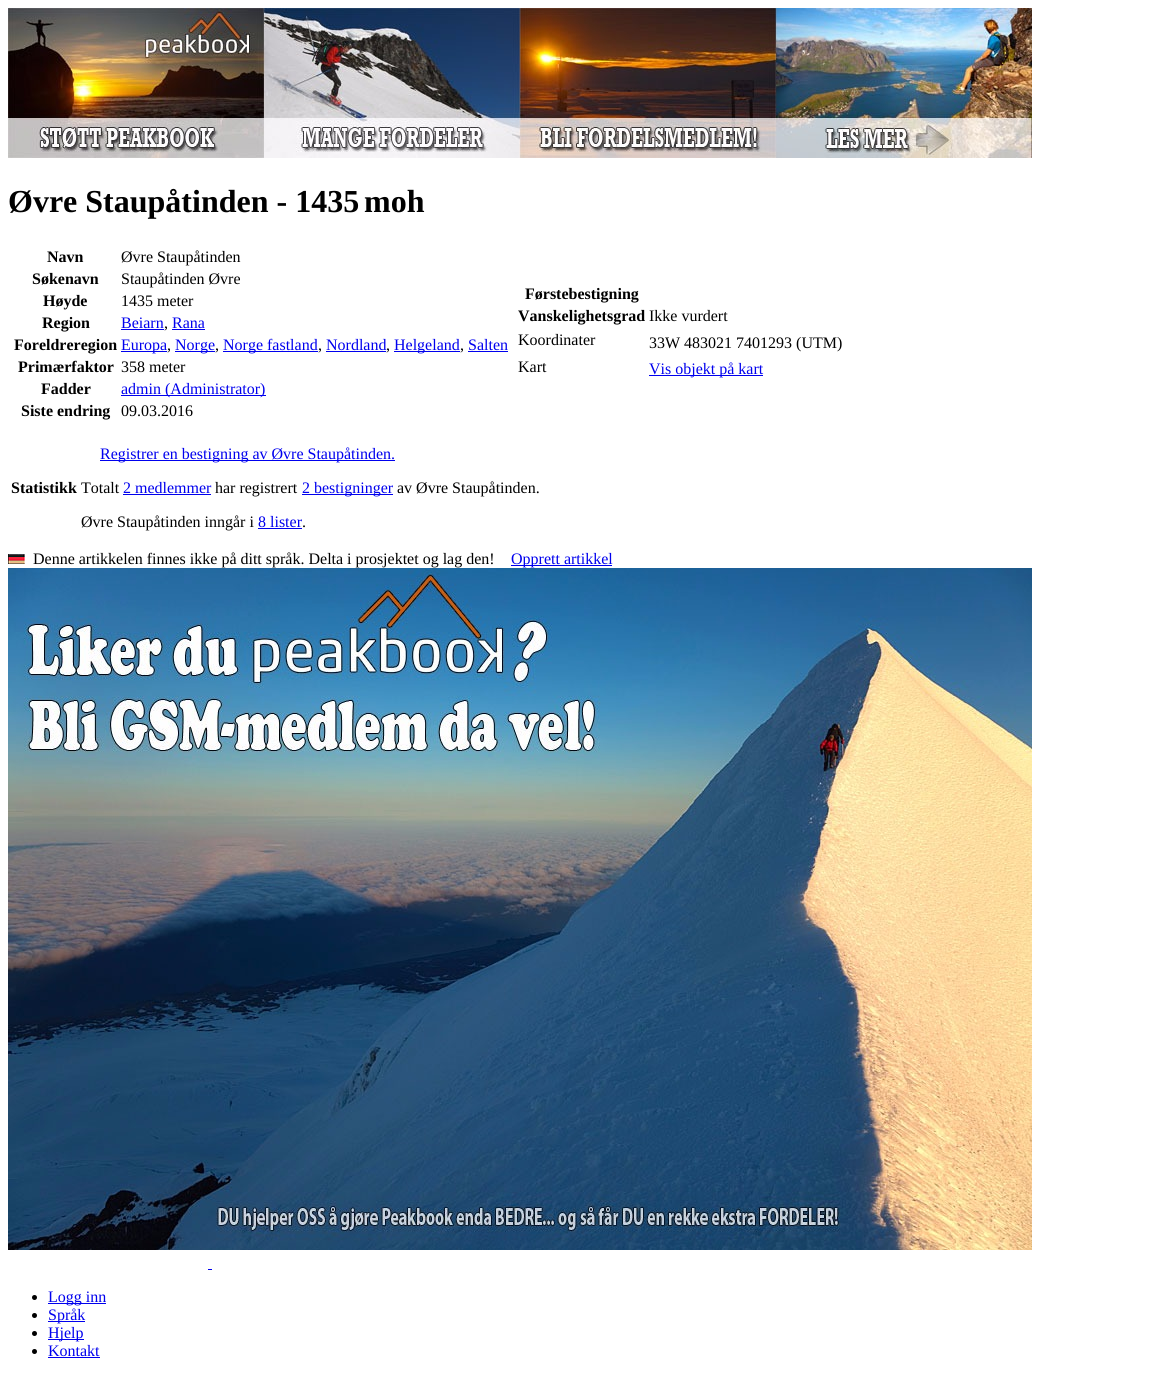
import math
import cairocffi as cairo

surface = cairo.ImageSurface(cairo.FORMAT_RGB24, 1172, 1374)
ctx = cairo.Context(surface)
options = cairo.FontOptions()
options.set_hint_metrics(cairo.HINT_METRICS_OFF)
options.set_hint_style(cairo.HINT_STYLE_NONE)
ctx.set_font_options(options)
ctx.set_miter_limit(4)


def rgb(r, g, b):
    ctx.set_source_rgb(r / 255, g / 255, b / 255)


def face(family, size, italic, bold):
    ctx.select_font_face(family, cairo.FONT_SLANT_ITALIC if italic else cairo.FONT_SLANT_NORMAL, cairo.FONT_WEIGHT_BOLD if bold else cairo.FONT_WEIGHT_NORMAL)
    ctx.set_font_size(size)


def label(x, y, s):
    ctx.move_to(x, y)
    ctx.show_text(s)


def rect(x, y, w, h):
    ctx.rectangle(x, y, w, h)
    ctx.fill()


def image(path, x, y, w, h):
    ctx.save()
    ctx.set_source_surface(cairo.ImageSurface.create_from_png(path), x, y)
    ctx.rectangle(x, y, w, h)
    ctx.fill()
    ctx.restore()


rgb(255, 255, 255)
ctx.paint()
image('image0.png', 8, 8, 1024, 150)
face('Liberation Serif', 32, 0, 1)
rgb(0, 0, 0)
label(8, 212, 'Øvre Staupåtinden - 1435')
label(364, 212, 'moh')
face('Liberation Serif', 16, 0, 1)
label(47, 262, 'Navn')
face('Liberation Serif', 16, 0, 0)
label(121, 262, 'Øvre Staupåtinden')
face('Liberation Serif', 16, 0, 1)
label(32, 284, 'Søkenavn')
face('Liberation Serif', 16, 0, 0)
label(121, 284, 'Staupåtinden Øvre')
face('Liberation Serif', 16, 0, 1)
label(43, 306, 'Høyde')
face('Liberation Serif', 16, 0, 0)
label(121, 306, '1435 meter')
face('Liberation Serif', 16, 0, 1)
label(42, 328, 'Region')
face('Liberation Serif', 16, 0, 0)
rgb(0, 0, 238)
label(121, 328, 'Beiarn')
rect(121, 329, 43, 1)
rgb(0, 0, 0)
label(164, 328, ',')
rgb(0, 0, 238)
label(172, 328, 'Rana')
rect(172, 329, 33, 1)
face('Liberation Serif', 16, 0, 1)
rgb(0, 0, 0)
label(14, 350, 'Foreldreregion')
rgb(0, 0, 238)
rect(121, 351, 46, 1)
face('Liberation Serif', 16, 0, 0)
label(121, 350, 'Europa')
rgb(0, 0, 0)
label(167, 350, ',')
rgb(0, 0, 238)
rect(175, 351, 40, 1)
label(175, 350, 'Norge')
rgb(0, 0, 0)
label(215, 350, ',')
rgb(0, 0, 238)
rect(223, 351, 95, 1)
label(223, 350, 'Norge fastland')
rgb(0, 0, 0)
label(318, 350, ',')
rgb(0, 0, 238)
label(326, 350, 'Nordland')
rect(326, 351, 60, 1)
rgb(0, 0, 0)
label(386, 350, ',')
rgb(0, 0, 238)
rect(394, 351, 66, 1)
label(394, 350, 'Helgeland')
rgb(0, 0, 0)
label(460, 350, ',')
rgb(0, 0, 238)
label(468, 350, 'Salten')
rect(468, 351, 40, 1)
face('Liberation Serif', 16, 0, 1)
rgb(0, 0, 0)
label(18, 372, 'Primærfaktor')
face('Liberation Serif', 16, 0, 0)
label(121, 372, '358 meter')
face('Liberation Serif', 16, 0, 1)
label(41, 394, 'Fadder')
rgb(0, 0, 238)
rect(121, 395, 145, 1)
face('Liberation Serif', 16, 0, 0)
label(121, 394, 'admin (Administrator)')
face('Liberation Serif', 16, 0, 1)
rgb(0, 0, 0)
label(21, 416, 'Siste endring')
face('Liberation Serif', 16, 0, 0)
label(121, 416, '09.03.2016')
face('Liberation Serif', 16, 0, 1)
label(525, 299, 'Førstebestigning')
label(518, 321, 'Vanskelighetsgrad')
face('Liberation Serif', 16, 0, 0)
label(649, 321, 'Ikke vurdert')
label(518, 345, 'Koordinater')
label(649, 348, '33W 483021 7401293 (UTM)')
label(518, 372, 'Kart')
rgb(0, 0, 238)
rect(649, 375, 114, 1)
label(649, 374, 'Vis objekt på kart')
face('Liberation Serif', 16, 0, 1)
rgb(0, 0, 0)
label(11, 493, 'Statistikk')
rgb(0, 0, 238)
rect(100, 460, 295, 1)
face('Liberation Serif', 16, 0, 0)
label(100, 459, 'Registrer en bestigning av Øvre Staupåtinden.')
rgb(0, 0, 0)
label(81, 493, 'Totalt')
rgb(0, 0, 238)
label(123, 493, '2 medlemmer')
rect(123, 494, 88, 1)
rgb(0, 0, 0)
label(215, 493, 'har registrert')
rgb(0, 0, 238)
rect(302, 494, 91, 1)
label(302, 493, '2 bestigninger')
rgb(0, 0, 0)
label(397, 493, 'av Øvre Staupåtinden.')
label(81, 527, 'Øvre Staupåtinden inngår i')
rgb(0, 0, 238)
label(258, 527, '8 lister')
rect(258, 528, 44, 1)
rgb(0, 0, 0)
label(302, 527, '.')
image('image1.png', 8, 554, 17, 10)
label(33, 564, 'Denne artikkelen finnes ikke på ditt språk. Delta i prosjektet og lag den!')
rgb(0, 0, 238)
rect(511, 565, 101, 1)
label(511, 564, 'Opprett artikkel')
image('image2.png', 8, 568, 1024, 682)
rect(208, 1269, 4, 1)
rgb(0, 0, 0)
ctx.arc(34.5, 1297.5, 2.5, 0, 2 * math.pi)
ctx.fill()
rgb(0, 0, 238)
rect(48, 1303, 58, 1)
label(48, 1302, 'Logg inn')
rgb(0, 0, 0)
ctx.new_path()
ctx.arc(34.5, 1315.5, 2.5, 0, 2 * math.pi)
ctx.fill()
rgb(0, 0, 238)
rect(48, 1321, 37, 1)
label(48, 1320, 'Språk')
rgb(0, 0, 0)
ctx.new_path()
ctx.arc(34.5, 1333.5, 2.5, 0, 2 * math.pi)
ctx.fill()
rgb(0, 0, 238)
rect(48, 1339, 36, 1)
label(48, 1338, 'Hjelp')
rgb(0, 0, 0)
ctx.new_path()
ctx.arc(34.5, 1351.5, 2.5, 0, 2 * math.pi)
ctx.fill()
rgb(0, 0, 238)
label(48, 1356, 'Kontakt')
rect(48, 1357, 52, 1)
surface.write_to_png('render.png')
